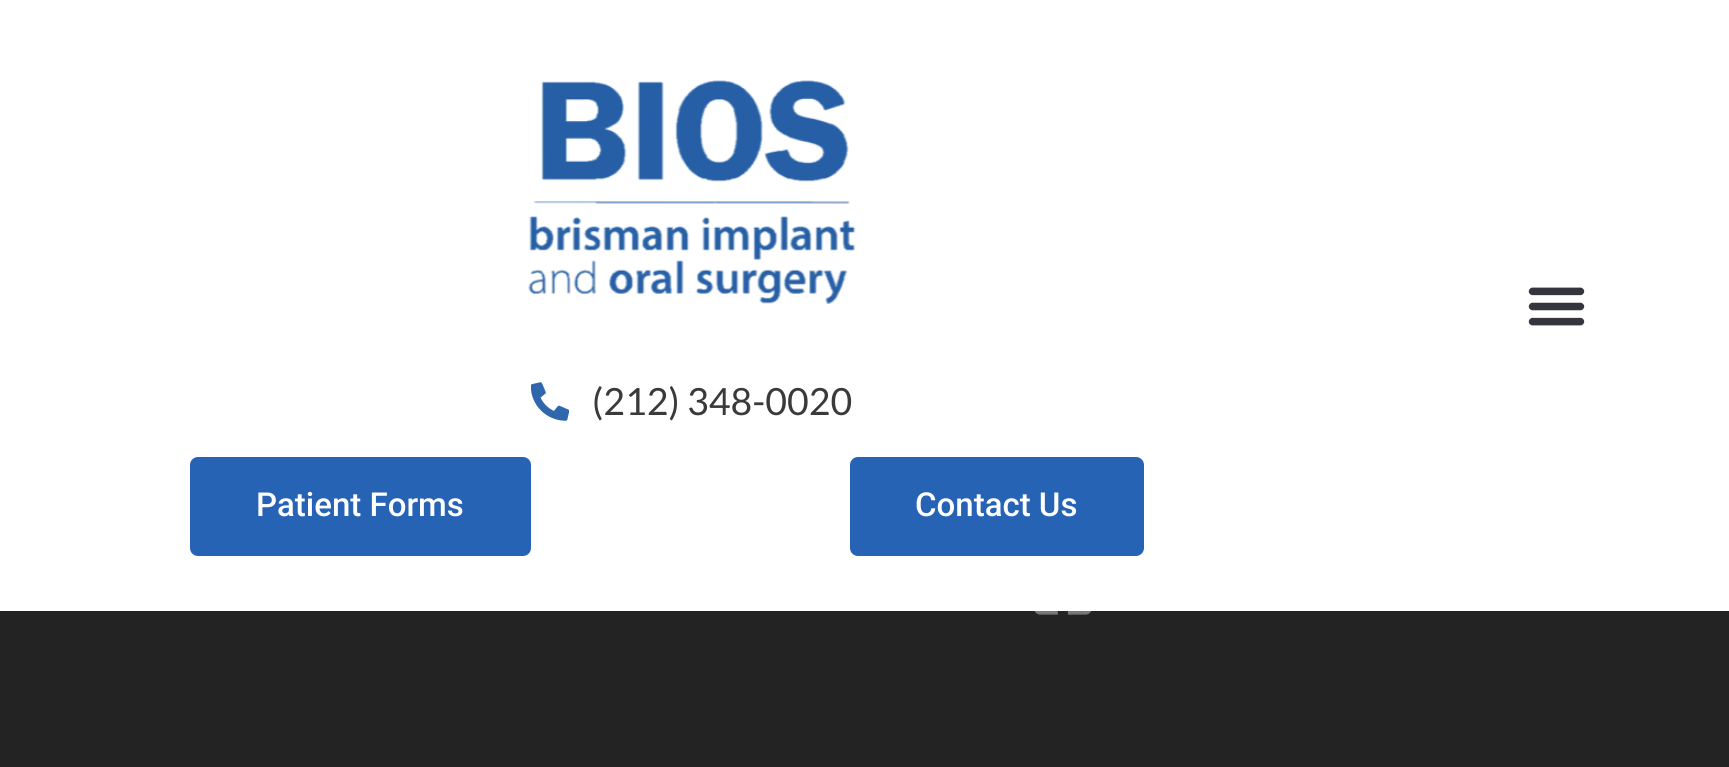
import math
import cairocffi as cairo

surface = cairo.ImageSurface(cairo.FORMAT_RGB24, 1729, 767)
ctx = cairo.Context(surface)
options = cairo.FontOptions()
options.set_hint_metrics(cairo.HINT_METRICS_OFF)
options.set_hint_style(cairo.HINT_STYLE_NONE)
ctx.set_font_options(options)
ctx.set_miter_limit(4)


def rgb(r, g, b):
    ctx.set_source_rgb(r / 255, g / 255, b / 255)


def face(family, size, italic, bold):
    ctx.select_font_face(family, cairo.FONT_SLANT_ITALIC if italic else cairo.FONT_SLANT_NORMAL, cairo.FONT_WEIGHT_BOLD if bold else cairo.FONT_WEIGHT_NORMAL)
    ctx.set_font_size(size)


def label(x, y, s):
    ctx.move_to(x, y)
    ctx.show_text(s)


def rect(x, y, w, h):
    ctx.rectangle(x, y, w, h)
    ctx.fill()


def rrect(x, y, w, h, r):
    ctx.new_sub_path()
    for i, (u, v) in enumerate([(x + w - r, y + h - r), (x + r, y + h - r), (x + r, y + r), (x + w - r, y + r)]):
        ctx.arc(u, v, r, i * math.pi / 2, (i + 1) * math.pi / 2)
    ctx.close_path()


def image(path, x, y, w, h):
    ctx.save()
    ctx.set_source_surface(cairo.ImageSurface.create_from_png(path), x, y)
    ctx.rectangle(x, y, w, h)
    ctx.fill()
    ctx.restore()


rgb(35, 35, 35)
ctx.paint()
rgb(255, 255, 255)
rect(0, 0, 1729, 611)
image('image0.png', 1528, 287, 57, 39)
image('image1.png', 528, 80, 328, 224)
image('image2.png', 531, 382, 38, 39)
face('Lato', 37.5, 0, 0)
rgb(58, 58, 58)
label(592, 415, '(212) 348-0020')
rgb(38, 99, 181)
rrect(190, 457, 341, 99, 8)
ctx.fill()
face('Roboto Medium', 33, 0, 0)
rgb(255, 255, 255)
label(256, 516, 'Patient Forms')
rgb(38, 99, 181)
rrect(850, 457, 294, 99, 8)
ctx.fill()
rgb(255, 255, 255)
label(915, 516, 'Contact Us')
image('image3.png', 1034, 611, 57, 4)
surface.write_to_png('render.png')
